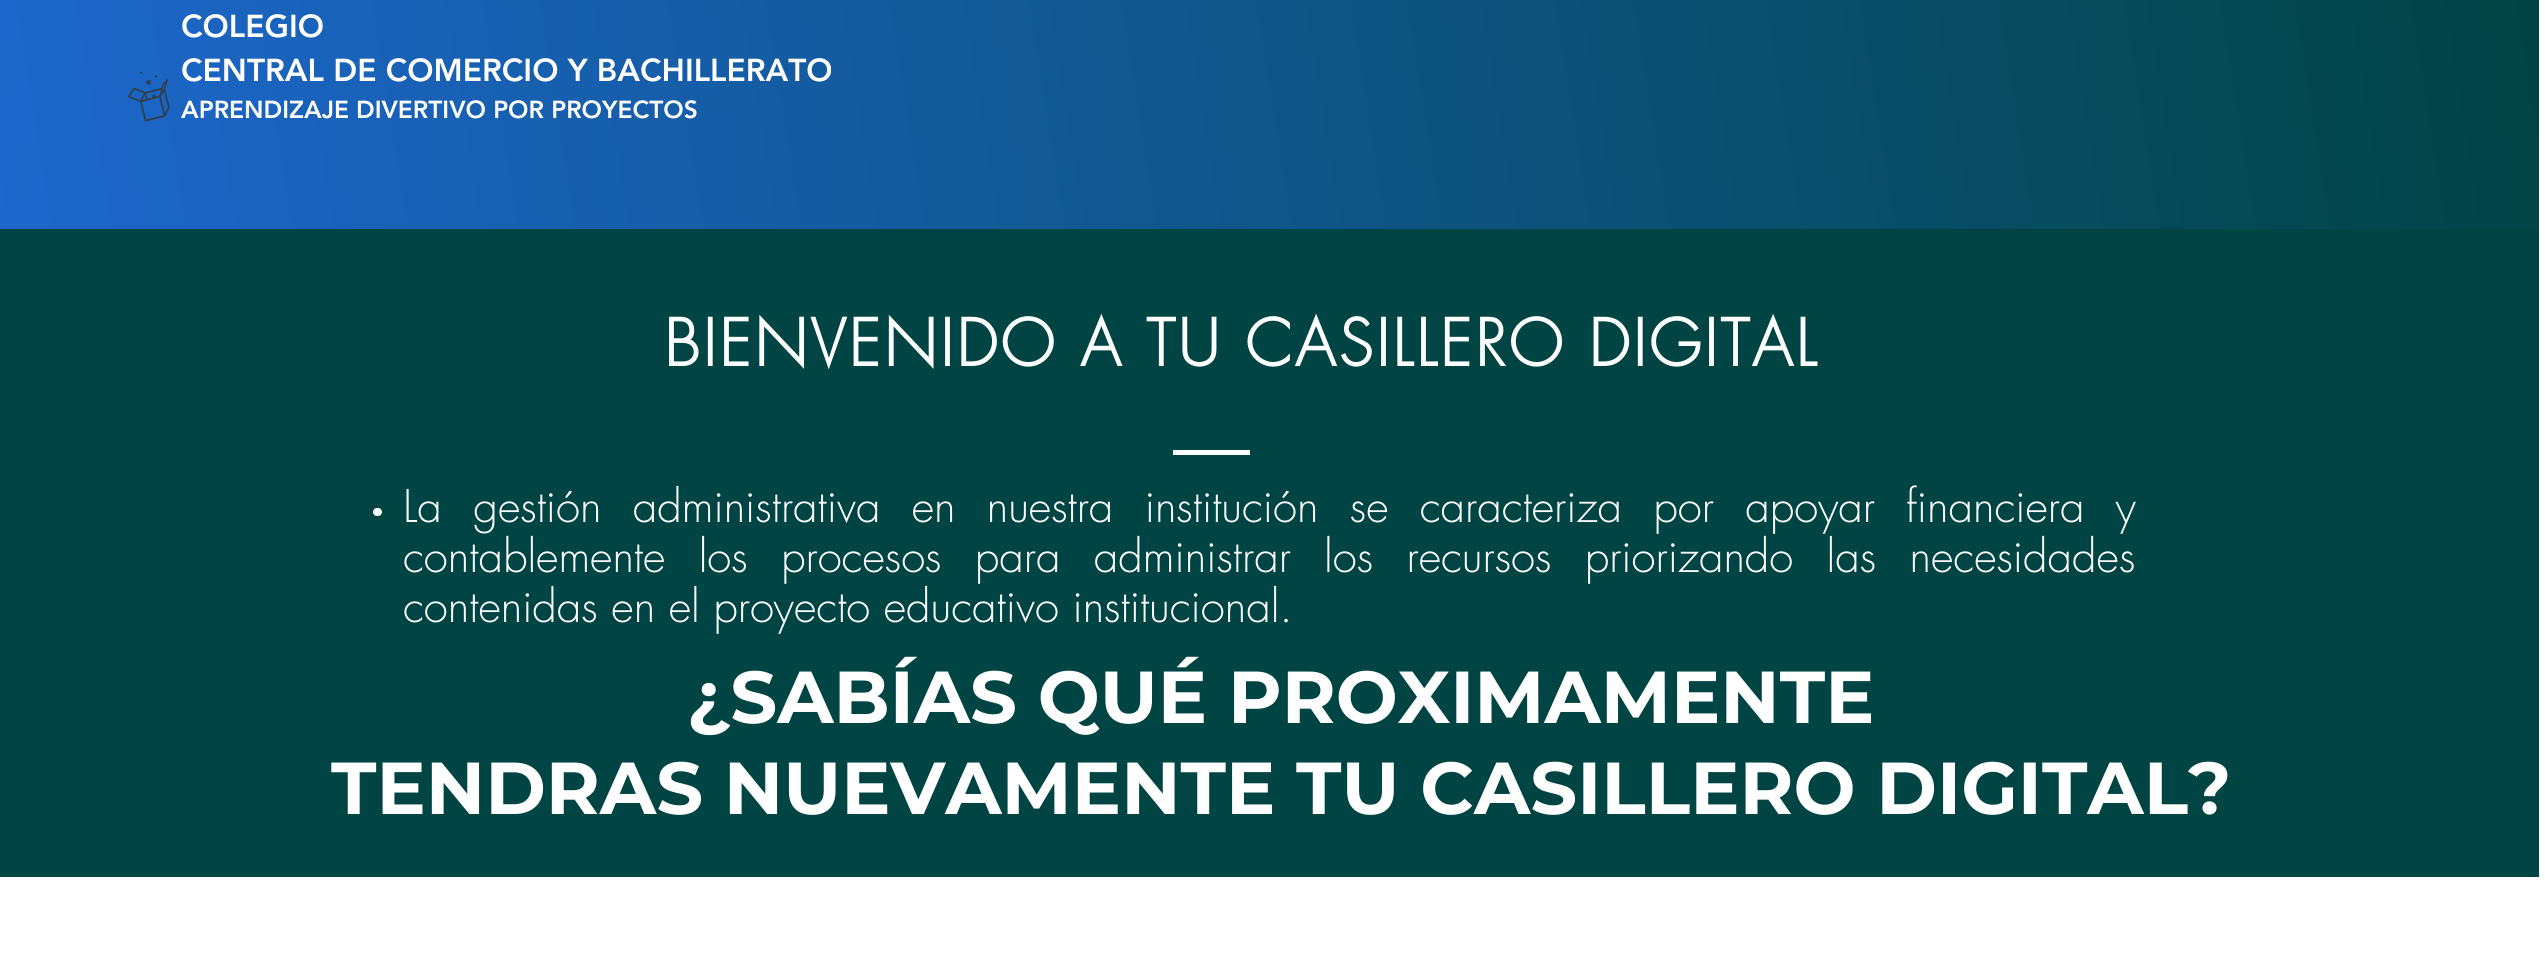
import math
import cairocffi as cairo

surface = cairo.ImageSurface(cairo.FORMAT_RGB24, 2545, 962)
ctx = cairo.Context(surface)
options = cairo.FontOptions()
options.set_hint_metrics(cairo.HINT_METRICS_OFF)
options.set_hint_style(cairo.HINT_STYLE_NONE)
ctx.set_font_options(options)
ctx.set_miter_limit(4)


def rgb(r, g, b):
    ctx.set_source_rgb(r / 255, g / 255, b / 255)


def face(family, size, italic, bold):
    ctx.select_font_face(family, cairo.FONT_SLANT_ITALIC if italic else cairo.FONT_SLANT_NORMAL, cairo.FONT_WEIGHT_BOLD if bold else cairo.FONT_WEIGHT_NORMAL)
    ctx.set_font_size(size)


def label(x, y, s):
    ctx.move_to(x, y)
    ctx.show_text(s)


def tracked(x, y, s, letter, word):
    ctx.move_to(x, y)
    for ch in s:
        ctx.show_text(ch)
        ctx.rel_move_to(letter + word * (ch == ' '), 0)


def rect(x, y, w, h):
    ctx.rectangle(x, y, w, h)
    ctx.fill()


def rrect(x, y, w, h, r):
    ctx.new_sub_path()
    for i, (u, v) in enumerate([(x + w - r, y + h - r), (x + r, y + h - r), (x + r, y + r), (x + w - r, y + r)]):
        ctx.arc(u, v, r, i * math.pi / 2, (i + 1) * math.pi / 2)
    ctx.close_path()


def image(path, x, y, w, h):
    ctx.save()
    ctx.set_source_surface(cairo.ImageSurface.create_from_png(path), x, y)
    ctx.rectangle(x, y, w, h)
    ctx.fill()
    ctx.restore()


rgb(255, 255, 255)
ctx.paint()
gradient = cairo.LinearGradient(13, 314, 2533, -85)
gradient.add_color_stop_rgba(0, 0.114, 0.404, 0.804, 1)
gradient.add_color_stop_rgba(1, 0.004, 0.267, 0.267, 1)
ctx.set_source(gradient)
rect(0, 0, 2539, 229)
face('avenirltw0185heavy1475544 Black', 31.5, 0, 0)
rgb(255, 255, 255)
label(181, 37, 'COLEGIO')
label(181, 81, 'CENTRAL DE COMERCIO Y BACHILLERATO')
image('image0.png', 127, 71, 43, 51)
face('avenirltw0185heavy1475544 Black', 24.5, 0, 0)
label(181, 118, 'APRENDIZAJE DIVERTIVO POR PROYECTOS')
rgb(1, 68, 68)
rect(0, 229, 2539, 648)
face('futura', 63, 0, 1)
rgb(255, 255, 255)
tracked(664, 366, 'BIENVENIDO A TU CASILLERO DIGITAL', 3.15, 0)
rect(1173, 450, 77, 5)
rrect(373, 508, 9, 8, 4)
ctx.fill()
face('futura Light', 43.75, 0, 0)
tracked(403, 522, 'La gestión administrativa en nuestra institución se caracteriza por apoyar financiera y', 0, 17.75)
tracked(403, 572, 'contablemente los procesos para administrar los recursos priorizando las necesidades', 0, 19.75)
label(403, 622, 'contenidas en el proyecto educativo institucional.')
face('Montserrat', 73.5, 0, 1)
label(687, 723, '¿SABÍAS QUÉ PROXIMAMENTE')
label(331, 814, 'TENDRAS NUEVAMENTE TU CASILLERO DIGITAL?')
surface.write_to_png('render.png')
